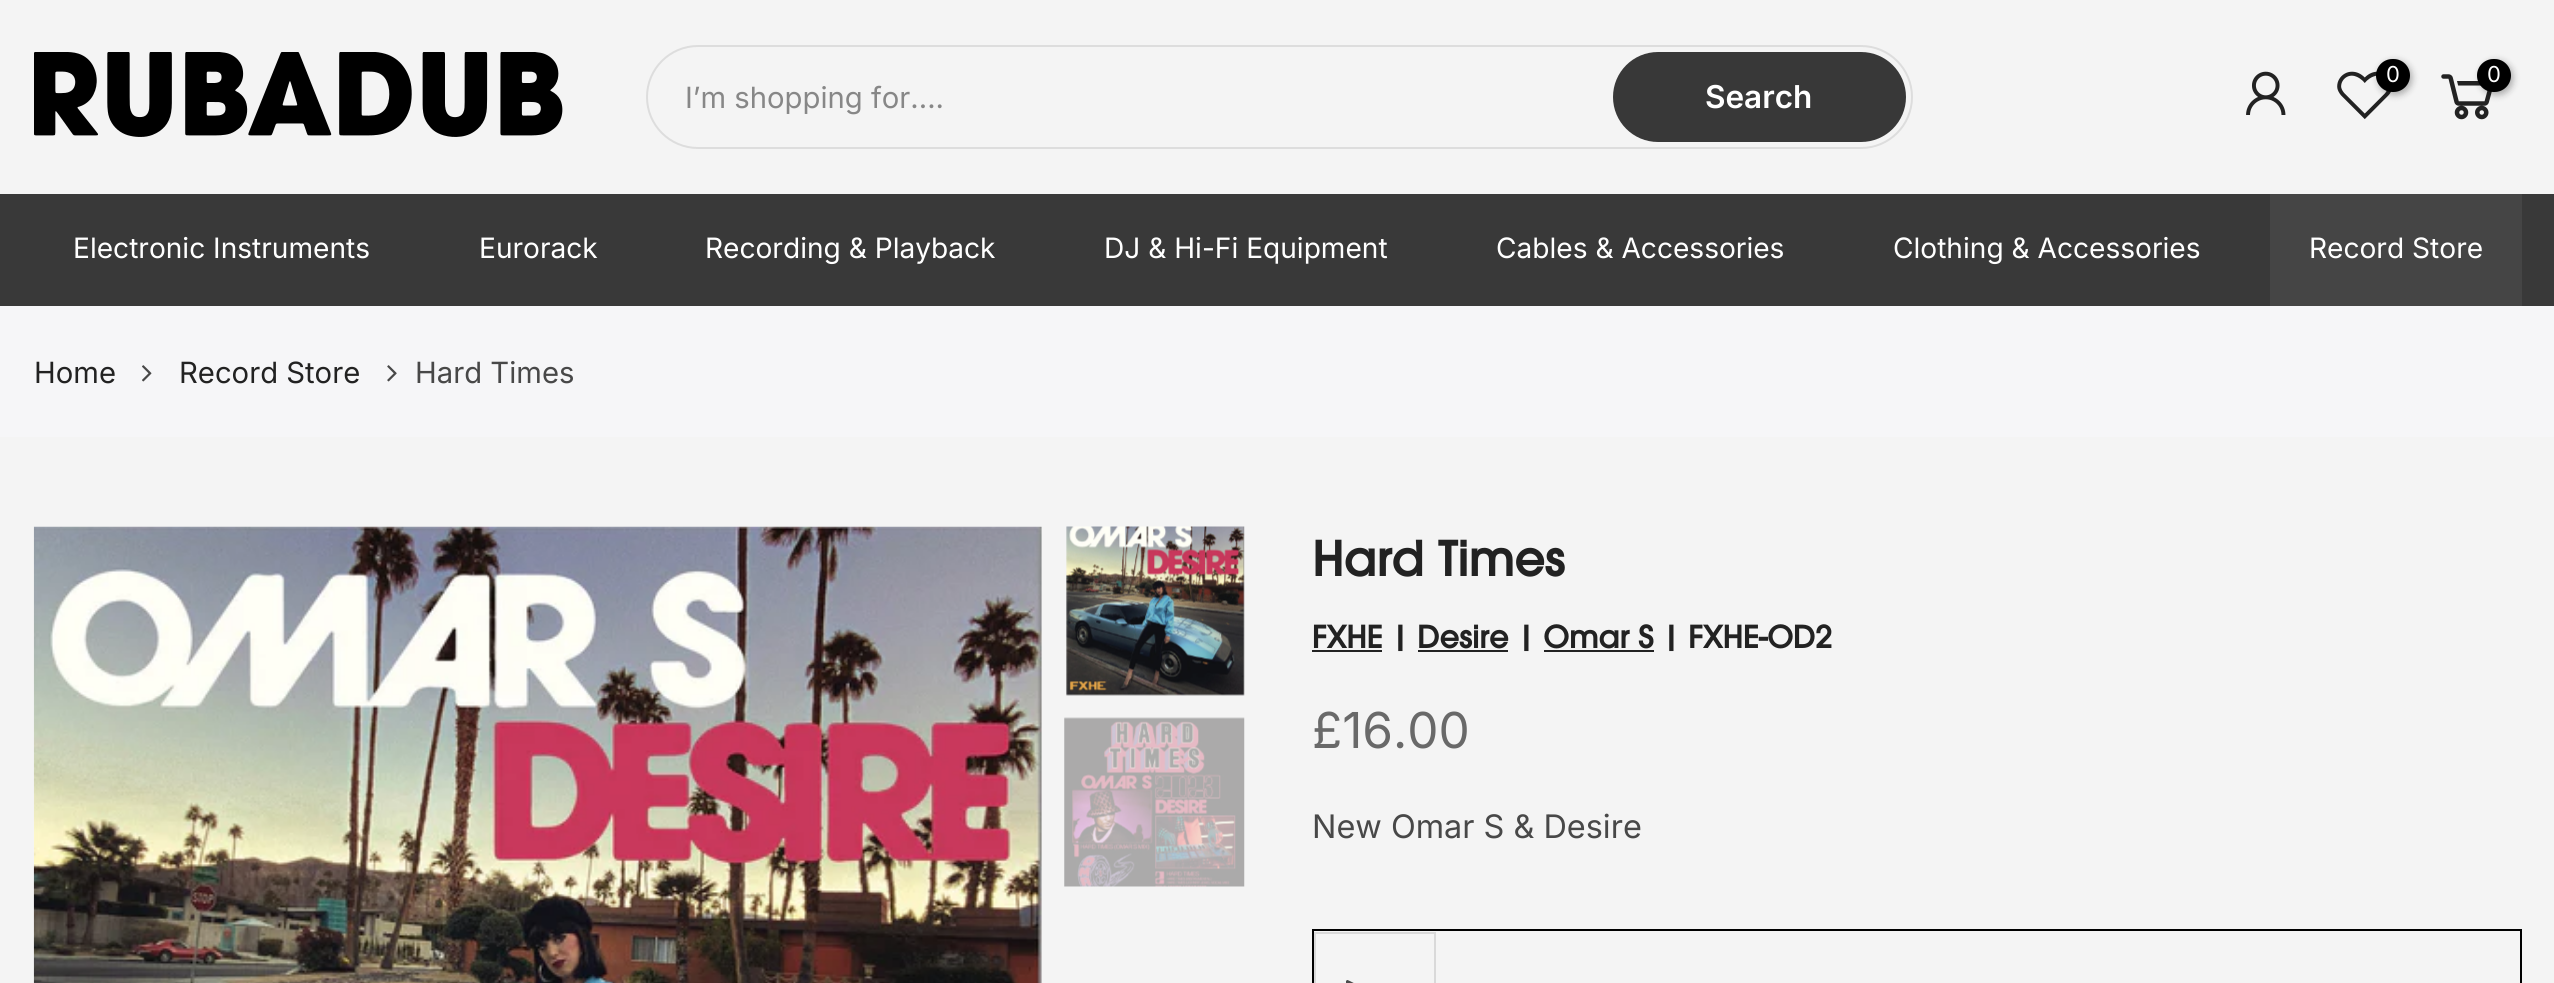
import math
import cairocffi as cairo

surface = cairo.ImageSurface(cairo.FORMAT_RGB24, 2554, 983)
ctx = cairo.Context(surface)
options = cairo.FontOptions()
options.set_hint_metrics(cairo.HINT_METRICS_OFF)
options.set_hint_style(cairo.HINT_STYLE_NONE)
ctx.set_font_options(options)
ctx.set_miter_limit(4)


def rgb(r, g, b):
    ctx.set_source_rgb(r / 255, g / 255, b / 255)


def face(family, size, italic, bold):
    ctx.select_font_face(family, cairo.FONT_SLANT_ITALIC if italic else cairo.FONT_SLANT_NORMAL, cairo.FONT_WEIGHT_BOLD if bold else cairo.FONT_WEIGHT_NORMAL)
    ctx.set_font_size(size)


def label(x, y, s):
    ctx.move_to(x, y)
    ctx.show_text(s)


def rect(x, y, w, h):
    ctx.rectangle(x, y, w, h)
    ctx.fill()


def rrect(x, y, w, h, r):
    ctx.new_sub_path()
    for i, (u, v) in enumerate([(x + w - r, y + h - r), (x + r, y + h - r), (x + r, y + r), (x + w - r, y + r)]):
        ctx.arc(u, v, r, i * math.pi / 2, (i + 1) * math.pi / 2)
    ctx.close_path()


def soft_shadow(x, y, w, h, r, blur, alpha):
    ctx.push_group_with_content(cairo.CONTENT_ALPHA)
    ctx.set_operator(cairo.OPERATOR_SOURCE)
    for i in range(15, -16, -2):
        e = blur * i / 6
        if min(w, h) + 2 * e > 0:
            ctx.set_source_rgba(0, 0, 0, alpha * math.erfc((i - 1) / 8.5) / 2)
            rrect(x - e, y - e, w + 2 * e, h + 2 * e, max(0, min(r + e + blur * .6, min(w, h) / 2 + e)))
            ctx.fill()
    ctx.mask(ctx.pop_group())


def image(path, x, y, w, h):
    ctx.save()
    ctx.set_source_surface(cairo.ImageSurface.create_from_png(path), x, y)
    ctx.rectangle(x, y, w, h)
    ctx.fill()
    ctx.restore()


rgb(244, 244, 244)
ctx.paint()
image('image0.png', 34, 52, 529, 85)
image('image1.png', 2246, 71, 40, 44)
image('image2.png', 2337, 71, 55, 49)
rgb(0, 0, 0)
soft_shadow(2378, 61, 34, 34, 17, 3.5, 0.3)
rgb(0, 0, 0)
rrect(2376, 59, 34, 33, 16.5)
ctx.fill()
face('Inter', 22, 0, 0)
rgb(255, 255, 255)
label(2386, 82, '0')
image('image3.png', 2441, 74, 51, 46)
rgb(0, 0, 0)
soft_shadow(2480, 61, 33, 34, 16.5, 3.5, 0.3)
rgb(0, 0, 0)
rrect(2477, 59, 34, 33, 16.5)
ctx.fill()
rgb(255, 255, 255)
label(2487, 82, '0')
rrect(647, 46, 1265, 102, 51)
rgb(221, 221, 221)
ctx.stroke()
face('Inter', 29.25, 0, 0)
rgb(135, 135, 135)
label(685, 108, 'I’m shopping for....')
rgb(56, 56, 56)
rrect(1613, 52, 293, 90, 45)
ctx.fill()
face('Inter SemiBold', 31.5, 0, 0)
rgb(255, 255, 255)
label(1705, 108, 'Search')
rgb(57, 57, 57)
rect(0, 194, 2554, 112)
face('Inter', 28.1, 0, 0)
rgb(255, 255, 255)
label(73, 258, 'Electronic Instruments')
label(479, 258, 'Eurorack')
label(705, 258, 'Recording & Playback')
label(1104, 258, 'DJ & Hi-Fi Equipment')
label(1496, 258, 'Cables & Accessories')
label(1893, 258, 'Clothing & Accessories')
rgb(69, 69, 69)
rect(2270, 194, 252, 112)
rgb(255, 255, 255)
label(2309, 258, 'Record Store')
rgb(246, 246, 248)
rect(0, 306, 2554, 131)
face('Inter', 29.25, 0, 0)
rgb(34, 34, 34)
label(34, 383, 'Home')
image('image4.png', 142, 365, 10, 17)
label(179, 383, 'Record Store')
image('image5.png', 387, 365, 10, 17)
rgb(72, 72, 72)
label(415, 383, 'Hard Times')
image('image6.png', 33, 526, 1009, 457)
image('image7.png', 1066, 526, 179, 170)
image('image8.png', 1064, 717, 181, 170)
face('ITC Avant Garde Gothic', 47.25, 0, 1)
rgb(34, 34, 34)
label(1312, 576, 'Hard Times')
rect(1312, 650, 70, 2)
face('ITC Avant Garde Gothic', 30.4, 0, 1)
label(1312, 648, 'FXHE | Desire | Omar S | FXHE-OD2')
rect(1418, 650, 90, 2)
rect(1544, 650, 110, 2)
face('Inter', 49.5, 0, 0)
rgb(105, 105, 105)
label(1312, 748, '£16.00')
face('Inter', 32.4, 0, 0)
rgb(72, 72, 72)
label(1312, 838, 'New Omar S & Desire')
ctx.rectangle(1313, 930, 1208, 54)
rgb(0, 0, 0)
ctx.stroke()
ctx.rectangle(1315, 933, 120, 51)
rgb(217, 217, 217)
ctx.stroke()
rgb(76, 76, 76)
ctx.new_path()
ctx.move_to(1402, 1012)
ctx.line_to(1357, 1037)
ctx.curve_to(1356, 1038, 1347, 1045, 1346, 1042)
ctx.line_to(1346, 981)
ctx.line_to(1347, 980)
ctx.curve_to(1348, 979, 1380, 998, 1384, 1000)
ctx.line_to(1402, 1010)
ctx.line_to(1403, 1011)
ctx.close_path()
ctx.fill()
surface.write_to_png('render.png')
